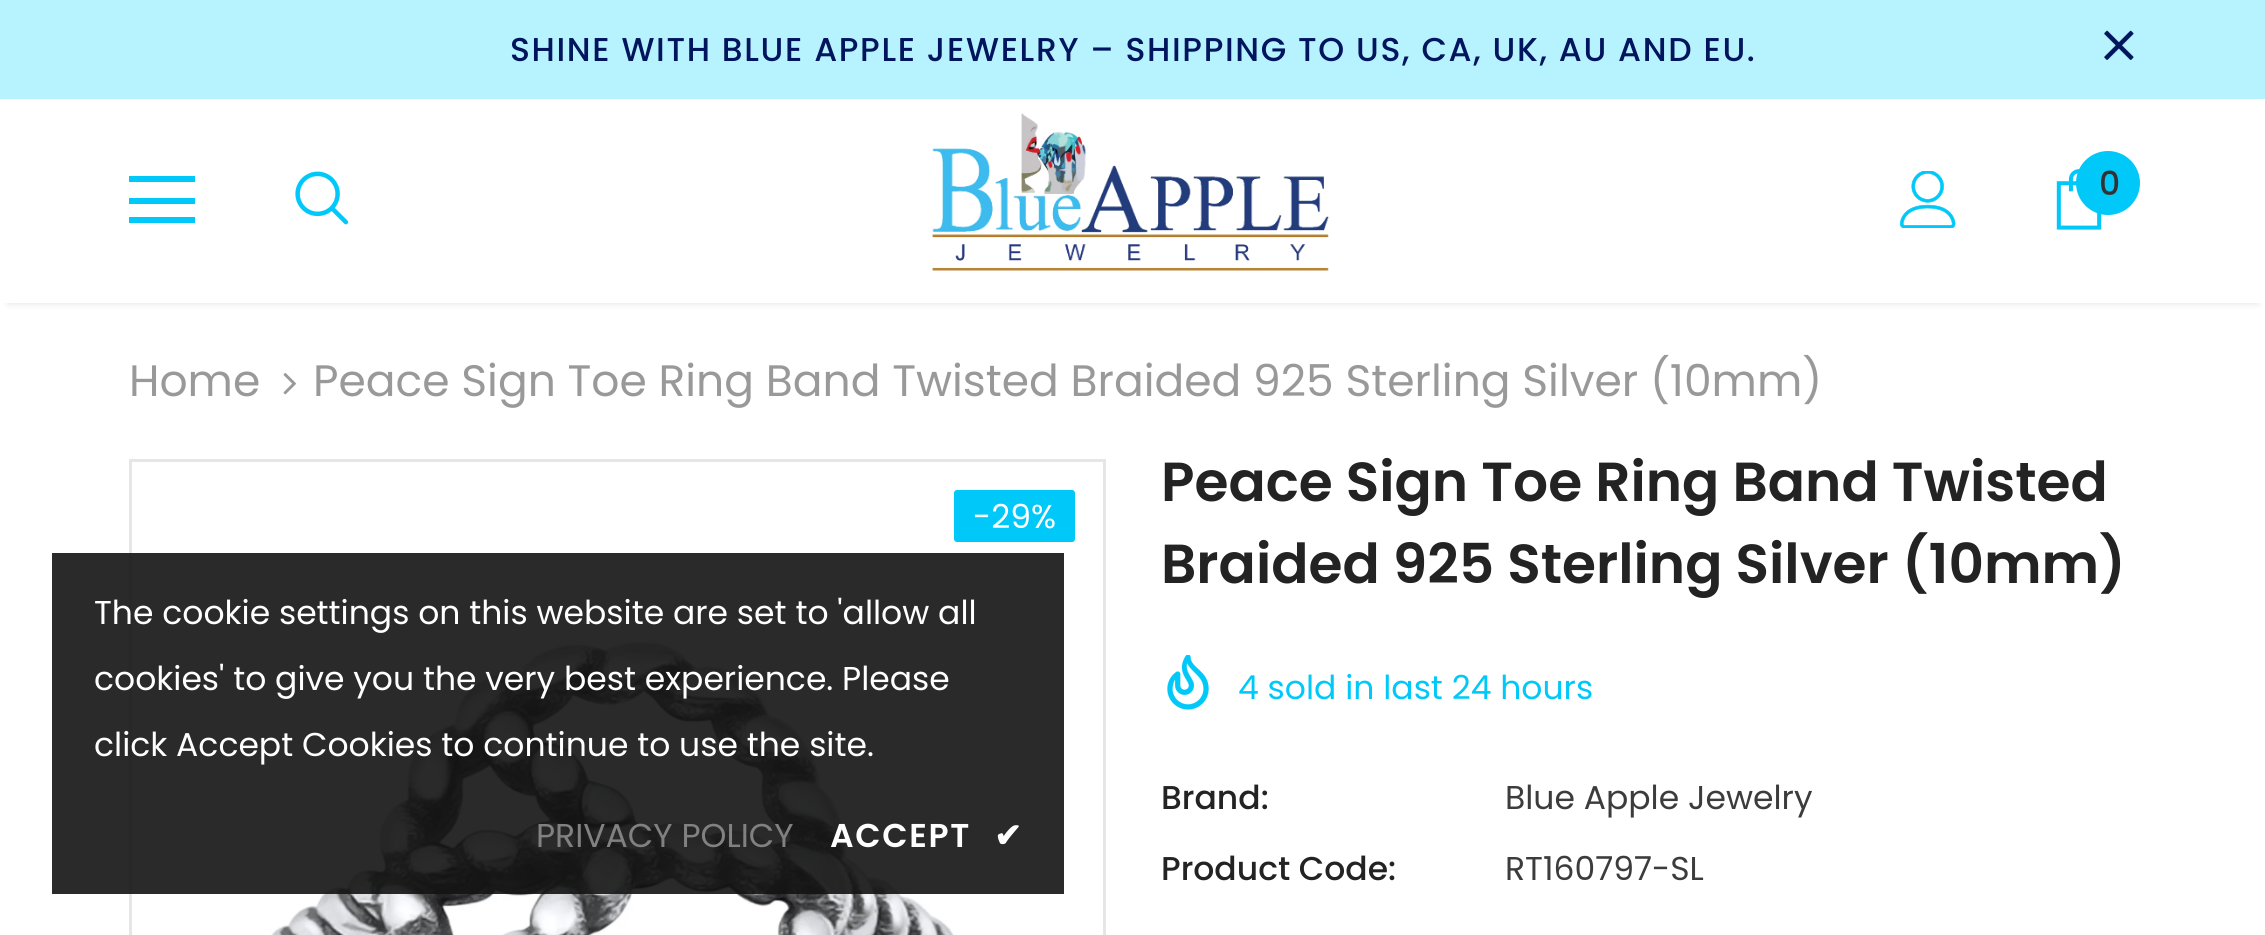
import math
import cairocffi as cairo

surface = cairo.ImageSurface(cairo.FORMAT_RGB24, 2265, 935)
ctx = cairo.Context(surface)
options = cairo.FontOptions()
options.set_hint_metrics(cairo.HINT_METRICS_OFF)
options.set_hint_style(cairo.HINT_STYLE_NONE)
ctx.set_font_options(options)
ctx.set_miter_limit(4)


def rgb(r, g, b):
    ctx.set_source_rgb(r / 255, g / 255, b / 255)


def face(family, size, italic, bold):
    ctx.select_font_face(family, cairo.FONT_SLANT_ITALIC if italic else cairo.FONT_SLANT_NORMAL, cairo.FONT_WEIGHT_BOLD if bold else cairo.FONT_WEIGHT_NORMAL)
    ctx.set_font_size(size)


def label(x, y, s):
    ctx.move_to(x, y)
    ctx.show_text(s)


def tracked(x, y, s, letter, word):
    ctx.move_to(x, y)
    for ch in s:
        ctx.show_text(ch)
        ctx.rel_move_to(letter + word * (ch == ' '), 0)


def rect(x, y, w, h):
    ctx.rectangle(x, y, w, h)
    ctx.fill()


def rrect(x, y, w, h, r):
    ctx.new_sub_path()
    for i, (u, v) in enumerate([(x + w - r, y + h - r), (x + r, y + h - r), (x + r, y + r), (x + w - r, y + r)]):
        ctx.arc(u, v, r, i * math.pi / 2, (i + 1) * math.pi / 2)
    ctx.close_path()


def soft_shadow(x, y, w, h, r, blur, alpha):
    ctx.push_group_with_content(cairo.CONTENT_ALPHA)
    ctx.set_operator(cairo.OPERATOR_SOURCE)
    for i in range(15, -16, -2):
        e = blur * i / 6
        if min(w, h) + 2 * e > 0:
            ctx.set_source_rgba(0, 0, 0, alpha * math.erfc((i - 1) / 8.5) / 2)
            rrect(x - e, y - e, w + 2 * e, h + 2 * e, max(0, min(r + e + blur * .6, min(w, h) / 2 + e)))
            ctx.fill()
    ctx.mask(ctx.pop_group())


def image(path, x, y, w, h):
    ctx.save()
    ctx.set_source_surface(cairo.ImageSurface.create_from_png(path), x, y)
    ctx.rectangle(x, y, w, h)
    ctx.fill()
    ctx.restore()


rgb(255, 255, 255)
ctx.paint()
rgb(183, 243, 255)
rect(0, 0, 2265, 99)
face('Poppins Medium', 33, 0, 0)
rgb(1, 21, 94)
tracked(510, 61, 'SHINE WITH BLUE APPLE JEWELRY – SHIPPING TO US, CA, UK, AU AND EU.', 1.65, 0)
image('image0.png', 2104, 30, 30, 30)
rgb(0, 0, 0)
soft_shadow(8, 116, 2250, 187, 0, 4, 0.12)
rgb(255, 255, 255)
rect(2, 110, 2262, 193)
rgb(0, 200, 249)
rect(129, 176, 66, 6)
rect(129, 198, 66, 6)
rect(129, 217, 66, 6)
image('image1.png', 295, 171, 54, 54)
image('image2.png', 932, 113, 397, 158)
image('image3.png', 1900, 171, 56, 57)
image('image4.png', 2056, 169, 46, 61)
ctx.arc(2108, 183, 32, 0, 2 * math.pi)
ctx.fill()
rgb(50, 50, 50)
label(2099, 195, '0')
face('Poppins', 44, 0, 0)
rgb(153, 153, 153)
label(129, 396, 'Home')
image('image5.png', 283, 373, 13, 22)
label(313, 396, 'Peace Sign Toe Ring Band Twisted Braided 925 Sterling Silver (10mm)')
ctx.rectangle(130.5, 460.5, 974, 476)
rgb(230, 230, 230)
ctx.set_line_width(3)
ctx.stroke()
rgb(0, 200, 249)
rrect(954, 490, 121, 52, 3)
ctx.fill()
face('Poppins', 33, 0, 0)
rgb(255, 255, 255)
label(973, 528, '-29%')
image('image6.png', 271, 641, 683, 294)
face('Poppins SemiBold', 55, 0, 0)
rgb(35, 35, 35)
label(1161, 501, 'Peace Sign Toe Ring Band Twisted')
label(1161, 583, 'Braided 925 Sterling Silver (10mm)')
image('image7.png', 1167, 655, 42, 55)
face('Poppins', 33, 0, 0)
rgb(0, 200, 249)
label(1238, 699, '4 sold in last 24 hours')
face('Poppins Medium', 33, 0, 0)
rgb(35, 35, 35)
label(1161, 809, 'Brand:')
face('Poppins', 33, 0, 0)
rgb(60, 60, 60)
label(1505, 809, 'Blue Apple Jewelry')
face('Poppins Medium', 33, 0, 0)
rgb(35, 35, 35)
label(1161, 880, 'Product Code:')
face('Poppins', 33, 0, 0)
rgb(60, 60, 60)
label(1505, 880, 'RT160797-SL')
ctx.set_source_rgba(0.078, 0.078, 0.078, 0.9)
rect(52, 553, 1012, 341)
rgb(255, 255, 255)
label(94, 624, 'The cookie settings on this website are set to \'allow all')
label(94, 690, 'cookies\' to give you the very best experience. Please')
label(94, 756, 'click Accept Cookies to continue to use the site.')
rgb(129, 129, 129)
label(536, 847, 'PRIVACY POLICY')
face('Poppins SemiBold', 33, 0, 0)
rgb(255, 255, 255)
tracked(830, 847, 'ACCEPT', 1.65, 0)
face('DejaVu Sans', 33, 0, 1)
tracked(994, 847, '✔', 1.65, 0)
surface.write_to_png('render.png')
